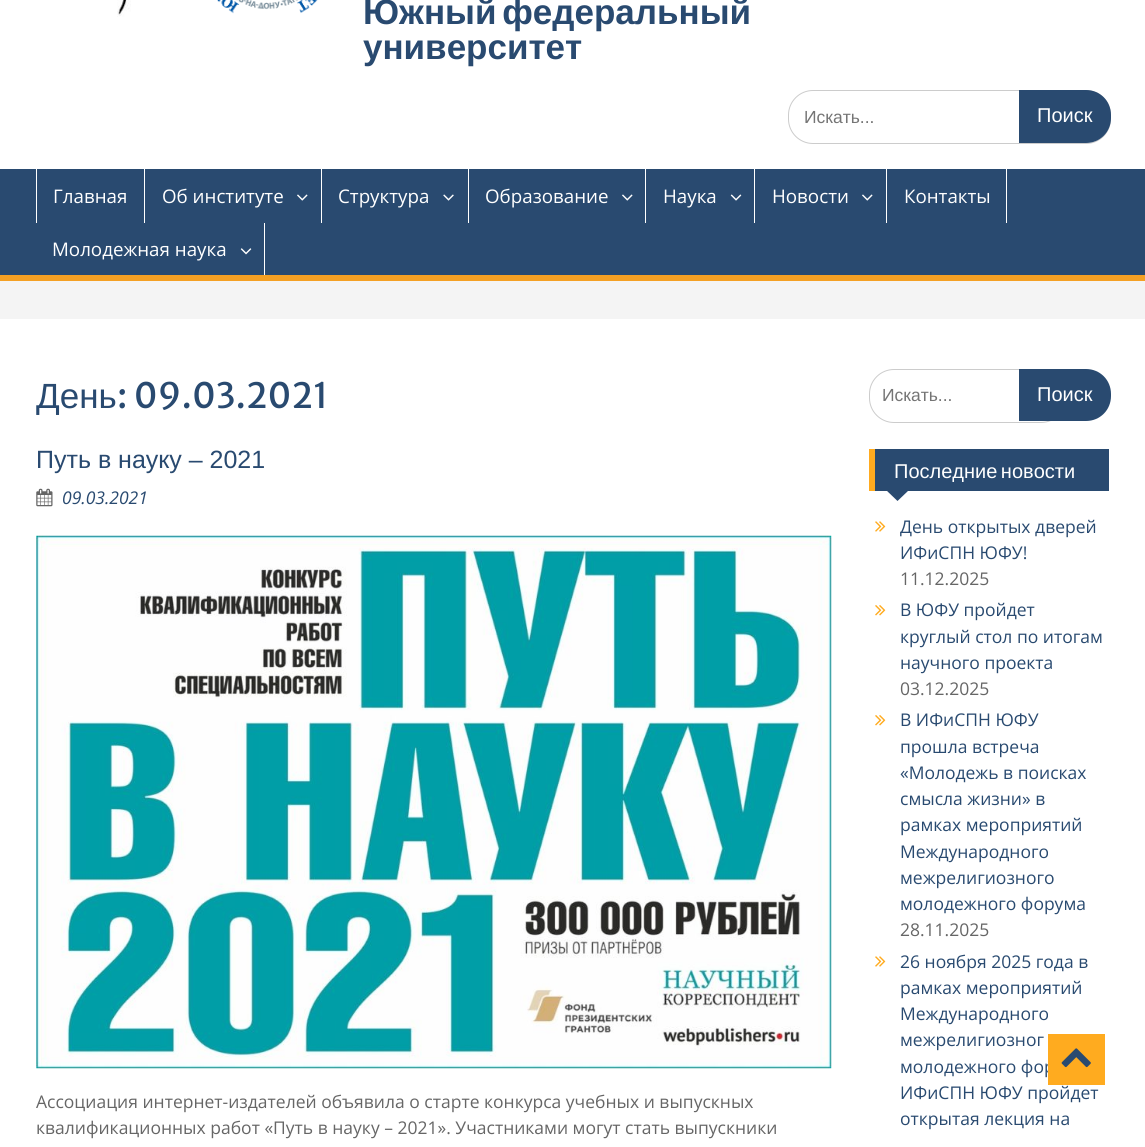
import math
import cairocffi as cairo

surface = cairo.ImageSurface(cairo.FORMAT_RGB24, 1145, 1147)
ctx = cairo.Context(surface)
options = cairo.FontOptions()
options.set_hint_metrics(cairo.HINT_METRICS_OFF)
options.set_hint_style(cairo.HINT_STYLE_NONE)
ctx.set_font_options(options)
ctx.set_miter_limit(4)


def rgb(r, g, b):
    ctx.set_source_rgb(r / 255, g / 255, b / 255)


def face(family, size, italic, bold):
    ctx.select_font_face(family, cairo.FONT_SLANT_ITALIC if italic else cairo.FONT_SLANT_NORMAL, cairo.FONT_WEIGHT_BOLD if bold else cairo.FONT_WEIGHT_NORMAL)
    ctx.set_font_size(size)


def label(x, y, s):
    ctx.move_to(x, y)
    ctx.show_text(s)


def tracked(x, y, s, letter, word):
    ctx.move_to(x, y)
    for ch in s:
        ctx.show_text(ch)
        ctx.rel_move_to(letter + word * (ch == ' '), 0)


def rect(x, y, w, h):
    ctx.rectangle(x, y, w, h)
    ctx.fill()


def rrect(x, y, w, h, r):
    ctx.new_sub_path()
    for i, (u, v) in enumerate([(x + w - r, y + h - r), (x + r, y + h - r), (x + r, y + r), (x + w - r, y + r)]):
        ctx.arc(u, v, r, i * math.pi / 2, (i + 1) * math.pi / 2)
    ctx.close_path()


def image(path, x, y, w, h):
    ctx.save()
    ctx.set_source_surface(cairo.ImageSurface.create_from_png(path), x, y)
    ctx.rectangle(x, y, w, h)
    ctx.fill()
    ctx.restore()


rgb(255, 255, 255)
ctx.paint()
image('image0.png', 117, 0, 14, 17)
image('image1.png', 217, 0, 101, 14)
face('Liberation Sans', 35, 0, 1)
rgb(41, 74, 112)
tracked(363, 24, 'Южный федеральный', 0, -4)
label(363, 59, 'университет')
rrect(788.5, 90.5, 322, 53, 24.5)
rgb(204, 204, 204)
ctx.set_line_width(1)
ctx.stroke()
face('Liberation Sans', 17.5, 0, 0)
rgb(117, 117, 117)
label(804, 123, 'Искать...')
rgb(41, 74, 112)
ctx.new_path()
ctx.move_to(1019, 90)
ctx.line_to(1086, 90)
ctx.curve_to(1100, 90, 1111, 101, 1111, 115)
ctx.line_to(1111, 118)
ctx.curve_to(1111, 132, 1100, 143, 1086, 143)
ctx.line_to(1019, 143)
ctx.close_path()
ctx.fill()
face('Liberation Sans', 20, 0, 0)
rgb(255, 255, 255)
label(1037, 122, 'Поиск')
rgb(41, 74, 112)
rect(0, 169, 1145, 106)
rgb(244, 160, 36)
rect(0, 275, 1145, 6)
rgb(255, 255, 255)
rect(144, 169, 1, 54)
rect(36, 169, 1, 54)
face('Open Sans', 18.75, 0, 0)
label(53, 203, 'Главная')
rect(321, 169, 1, 54)
label(162, 203, 'Об институте')
image('image2.png', 297, 194, 11, 7)
rect(468, 169, 1, 54)
label(338, 203, 'Структура')
image('image3.png', 443, 194, 11, 7)
rect(645, 169, 1, 54)
label(485, 203, 'Образование')
image('image2.png', 622, 194, 11, 7)
rect(754, 169, 1, 54)
label(663, 203, 'Наука')
image('image4.png', 730, 194, 12, 7)
rect(886, 169, 1, 54)
label(772, 203, 'Новости')
image('image2.png', 862, 194, 11, 7)
rect(1006, 169, 1, 54)
label(904, 203, 'Контакты')
rect(264, 223, 1, 52)
label(52, 256, 'Молодежная наука')
image('image5.png', 240, 248, 12, 7)
rgb(244, 244, 244)
rect(0, 281, 1145, 38)
face('Liberation Sans', 35, 0, 0)
rgb(41, 74, 112)
label(36, 408, 'День')
face('Merriweather Sans', 35, 0, 0)
label(117, 408, ': 09.03.2021')
face('Liberation Sans', 25, 0, 0)
label(36, 468, 'Путь в науку – 2021')
image('image6.png', 36, 488, 17, 19)
face('Open Sans', 17.5, 1, 0)
label(62, 504, '09.03.2021')
image('image7.png', 36, 535, 796, 534)
face('Open Sans', 17.5, 0, 0)
rgb(102, 102, 102)
label(36, 1108, 'Ассоциация интернет-издателей объявила о старте конкурса учебных и выпускных')
label(36, 1134, 'квалификационных работ «Путь в науку – 2021». Участниками могут стать выпускники')
rrect(869.5, 369.5, 196, 53, 24.5)
rgb(204, 204, 204)
ctx.stroke()
face('Liberation Sans', 17.5, 0, 0)
rgb(117, 117, 117)
label(882, 401, 'Искать...')
rgb(41, 74, 112)
ctx.new_path()
ctx.move_to(1019, 369)
ctx.line_to(1086, 369)
ctx.curve_to(1100, 369, 1111, 380, 1111, 394)
ctx.line_to(1111, 396)
ctx.curve_to(1111, 410, 1100, 421, 1086, 421)
ctx.line_to(1019, 421)
ctx.close_path()
ctx.fill()
face('Liberation Sans', 20, 0, 0)
rgb(255, 255, 255)
label(1037, 401, 'Поиск')
rgb(41, 74, 112)
rect(875, 449, 234, 42)
rgb(255, 171, 31)
rect(869, 449, 6, 42)
rgb(255, 255, 255)
tracked(894, 478, 'Последние новости', 0, -2)
rgb(41, 74, 112)
ctx.new_path()
ctx.move_to(886, 490)
ctx.line_to(909, 490)
ctx.line_to(897.5, 501)
ctx.close_path()
ctx.fill()
image('image8.png', 875, 521, 11, 11)
face('Open Sans', 17.5, 0, 0)
label(900, 533, 'День открытых дверей')
label(900, 559, 'ИФиСПН ЮФУ!')
rgb(102, 102, 102)
label(900, 585, '11.12.2025')
image('image9.png', 875, 605, 11, 11)
rgb(41, 74, 112)
label(900, 616, 'В ЮФУ пройдет')
label(900, 643, 'круглый стол по итогам')
label(900, 669, 'научного проекта')
rgb(102, 102, 102)
label(900, 695, '03.12.2025')
image('image9.png', 875, 715, 11, 11)
rgb(41, 74, 112)
label(900, 726, 'В ИФиСПН ЮФУ')
label(900, 753, 'прошла встреча')
label(900, 779, '«Молодежь в поисках')
label(900, 805, 'смысла жизни» в')
label(900, 831, 'рамках мероприятий')
label(900, 858, 'Международного')
label(900, 884, 'межрелигиозного')
label(900, 910, 'молодежного форума')
rgb(102, 102, 102)
label(900, 936, '28.11.2025')
image('image8.png', 875, 956, 11, 11)
rgb(41, 74, 112)
label(900, 968, '26 ноября 2025 года в')
label(900, 994, 'рамках мероприятий')
label(900, 1020, 'Международного')
label(900, 1046, 'межрелигиозног')
label(900, 1073, 'молодежного фор')
label(900, 1099, 'ИФиСПН ЮФУ пройдет')
label(900, 1125, 'открытая лекция на')
rgb(255, 171, 31)
rect(1048, 1034, 57, 51)
image('image10.png', 1061, 1048, 30, 20)
surface.write_to_png('render.png')
